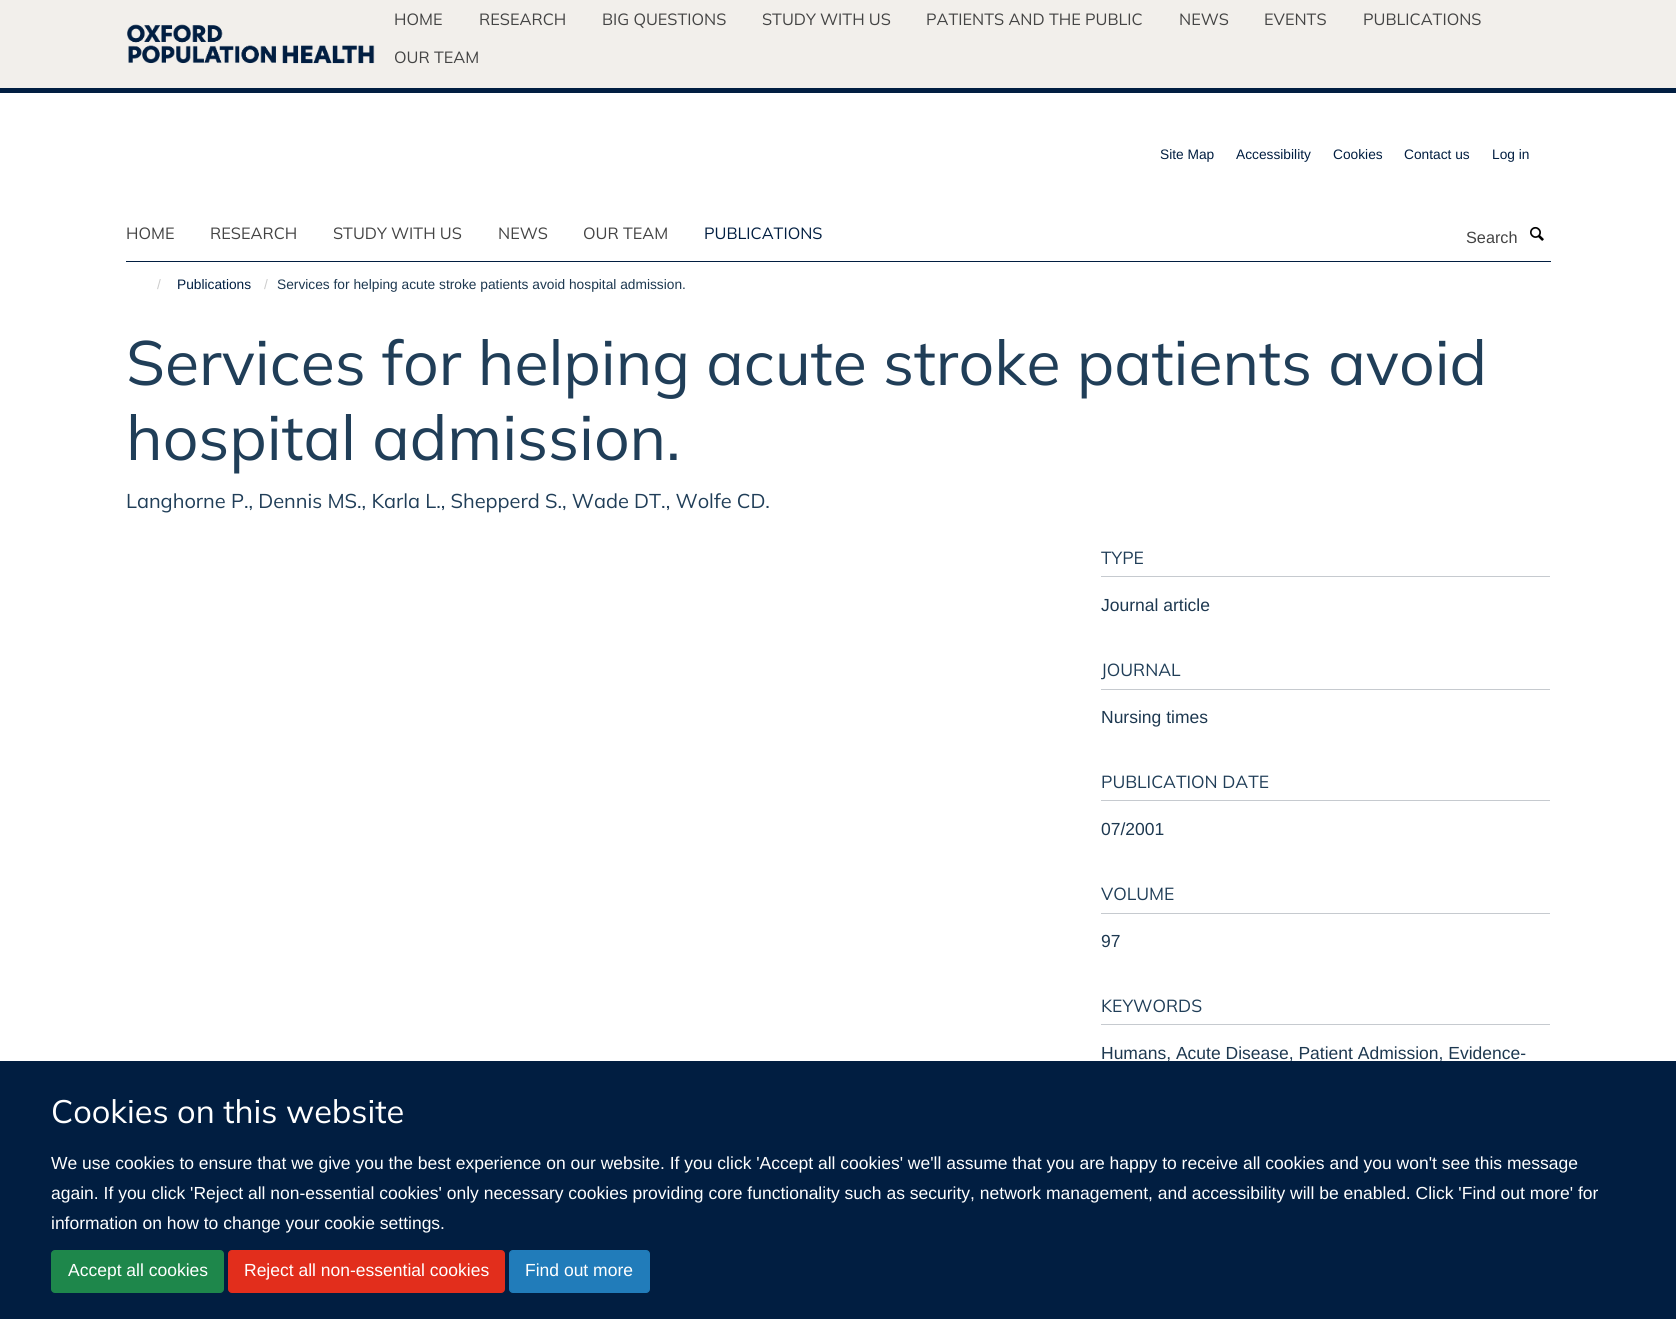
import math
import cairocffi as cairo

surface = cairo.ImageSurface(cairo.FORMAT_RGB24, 1676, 1319)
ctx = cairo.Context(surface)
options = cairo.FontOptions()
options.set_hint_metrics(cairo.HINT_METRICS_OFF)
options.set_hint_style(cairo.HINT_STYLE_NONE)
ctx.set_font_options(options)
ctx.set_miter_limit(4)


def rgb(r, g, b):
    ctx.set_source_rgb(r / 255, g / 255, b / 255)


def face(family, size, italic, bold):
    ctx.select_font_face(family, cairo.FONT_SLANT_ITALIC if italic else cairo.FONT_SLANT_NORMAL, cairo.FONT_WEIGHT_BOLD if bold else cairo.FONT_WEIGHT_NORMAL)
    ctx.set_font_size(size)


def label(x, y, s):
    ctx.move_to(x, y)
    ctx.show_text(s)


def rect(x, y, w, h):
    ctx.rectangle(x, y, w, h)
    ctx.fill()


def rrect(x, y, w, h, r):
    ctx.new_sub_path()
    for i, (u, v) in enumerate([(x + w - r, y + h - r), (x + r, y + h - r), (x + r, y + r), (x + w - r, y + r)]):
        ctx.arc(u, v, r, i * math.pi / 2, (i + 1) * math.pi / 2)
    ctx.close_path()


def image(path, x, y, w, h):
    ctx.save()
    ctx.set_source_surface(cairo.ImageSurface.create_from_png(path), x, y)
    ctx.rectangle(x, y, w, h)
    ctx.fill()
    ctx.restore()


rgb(255, 255, 255)
ctx.paint()
rgb(242, 239, 235)
rect(0, 0, 1676, 88)
rgb(1, 30, 65)
rect(0, 88, 1676, 5)
image('image0.png', 127, 24, 248, 40)
face('Mulish', 16.25, 0, 0)
rgb(68, 68, 68)
label(394, 25, 'HOME')
label(479, 25, 'RESEARCH')
label(602, 25, 'BIG QUESTIONS')
label(762, 25, 'STUDY WITH US')
label(926, 25, 'PATIENTS AND THE PUBLIC')
label(1179, 25, 'NEWS')
label(1264, 25, 'EVENTS')
label(1363, 25, 'PUBLICATIONS')
label(394, 63, 'OUR TEAM')
face('Liberation Sans', 13.75, 0, 0)
rgb(1, 30, 65)
label(1160, 159, 'Site Map')
label(1236, 159, 'Accessibility')
label(1333, 159, 'Cookies')
label(1404, 159, 'Contact us')
label(1492, 159, 'Log in')
rect(126, 261, 1425, 1)
face('Mulish', 16.25, 0, 0)
rgb(68, 68, 68)
label(126, 239, 'HOME')
label(210, 239, 'RESEARCH')
label(333, 239, 'STUDY WITH US')
label(498, 239, 'NEWS')
label(583, 239, 'OUR TEAM')
rgb(1, 30, 65)
label(704, 239, 'PUBLICATIONS')
face('Liberation Sans', 16.25, 0, 0)
rgb(68, 68, 68)
label(1466, 243, 'Search')
image('image1.png', 1530, 226, 14, 15)
face('Liberation Sans', 13.75, 0, 0)
rgb(204, 204, 204)
label(157, 289, '/')
rgb(1, 30, 65)
label(177, 289, 'Publications')
rgb(204, 204, 204)
label(264, 289, '/')
rgb(29, 56, 80)
label(277, 289, 'Services for helping acute stroke patients avoid hospital admission.')
face('Mulish', 62.5, 0, 0)
rgb(32, 62, 88)
label(126, 385, 'Services for helping acute stroke patients avoid')
label(126, 460, 'hospital admission.')
face('Mulish', 20, 0, 0)
label(126, 508, 'Langhorne P., Dennis MS., Karla L., Shepperd S., Wade DT., Wolfe CD.')
rgb(198, 202, 207)
rect(1101, 576, 449, 1)
face('Mulish', 17.5, 0, 0)
rgb(32, 62, 88)
label(1101, 564, 'TYPE')
face('Liberation Sans', 17.5, 0, 0)
rgb(29, 56, 80)
label(1101, 611, 'Journal article')
rgb(198, 202, 207)
rect(1101, 689, 449, 1)
face('Mulish', 17.5, 0, 0)
rgb(32, 62, 88)
label(1101, 676, 'JOURNAL')
face('Liberation Sans', 17.5, 0, 0)
rgb(29, 56, 80)
label(1101, 723, 'Nursing times')
rgb(198, 202, 207)
rect(1101, 800, 449, 1)
face('Mulish', 17.5, 0, 0)
rgb(32, 62, 88)
label(1101, 788, 'PUBLICATION DATE')
face('Liberation Sans', 17.5, 0, 0)
rgb(29, 56, 80)
label(1101, 835, '07/2001')
rgb(198, 202, 207)
rect(1101, 913, 449, 1)
face('Mulish', 17.5, 0, 0)
rgb(32, 62, 88)
label(1101, 900, 'VOLUME')
face('Liberation Sans', 17.5, 0, 0)
rgb(29, 56, 80)
label(1101, 947, '97')
rgb(198, 202, 207)
rect(1101, 1024, 449, 1)
face('Mulish', 17.5, 0, 0)
rgb(32, 62, 88)
label(1101, 1012, 'KEYWORDS')
face('Liberation Sans', 17.5, 0, 0)
rgb(29, 56, 80)
label(1101, 1059, 'Humans, Acute Disease, Patient Admission, Evidence-')
rgb(1, 30, 65)
rect(0, 1061, 1676, 258)
face('Mulish', 32.5, 0, 0)
rgb(255, 255, 255)
label(51, 1123, 'Cookies on this website')
face('Liberation Sans', 17.5, 0, 0)
label(51, 1169, 'We use cookies to ensure that we give you the best experience on our website. If you click \'Accept all cookies\' we\'ll assume that you are happy to receive all cookies and you won\'t see this message')
label(51, 1199, 'again. If you click \'Reject all non-essential cookies\' only necessary cookies providing core functionality such as security, network management, and accessibility will be enabled. Click \'Find out more\' for')
label(51, 1229, 'information on how to change your cookie settings.')
rgb(30, 135, 75)
rrect(51.5, 1250.5, 172, 42, 3.5)
ctx.fill_preserve()
ctx.set_line_width(1)
ctx.stroke()
rgb(255, 255, 255)
label(68, 1276, 'Accept all cookies')
rgb(226, 46, 28)
rrect(228.5, 1250.5, 276, 42, 3.5)
ctx.fill_preserve()
ctx.stroke()
rgb(255, 255, 255)
label(244, 1276, 'Reject all non-essential cookies')
rgb(33, 124, 186)
rrect(509.5, 1250.5, 140, 42, 3.5)
ctx.fill_preserve()
ctx.stroke()
rgb(255, 255, 255)
label(525, 1276, 'Find out more')
surface.write_to_png('render.png')
